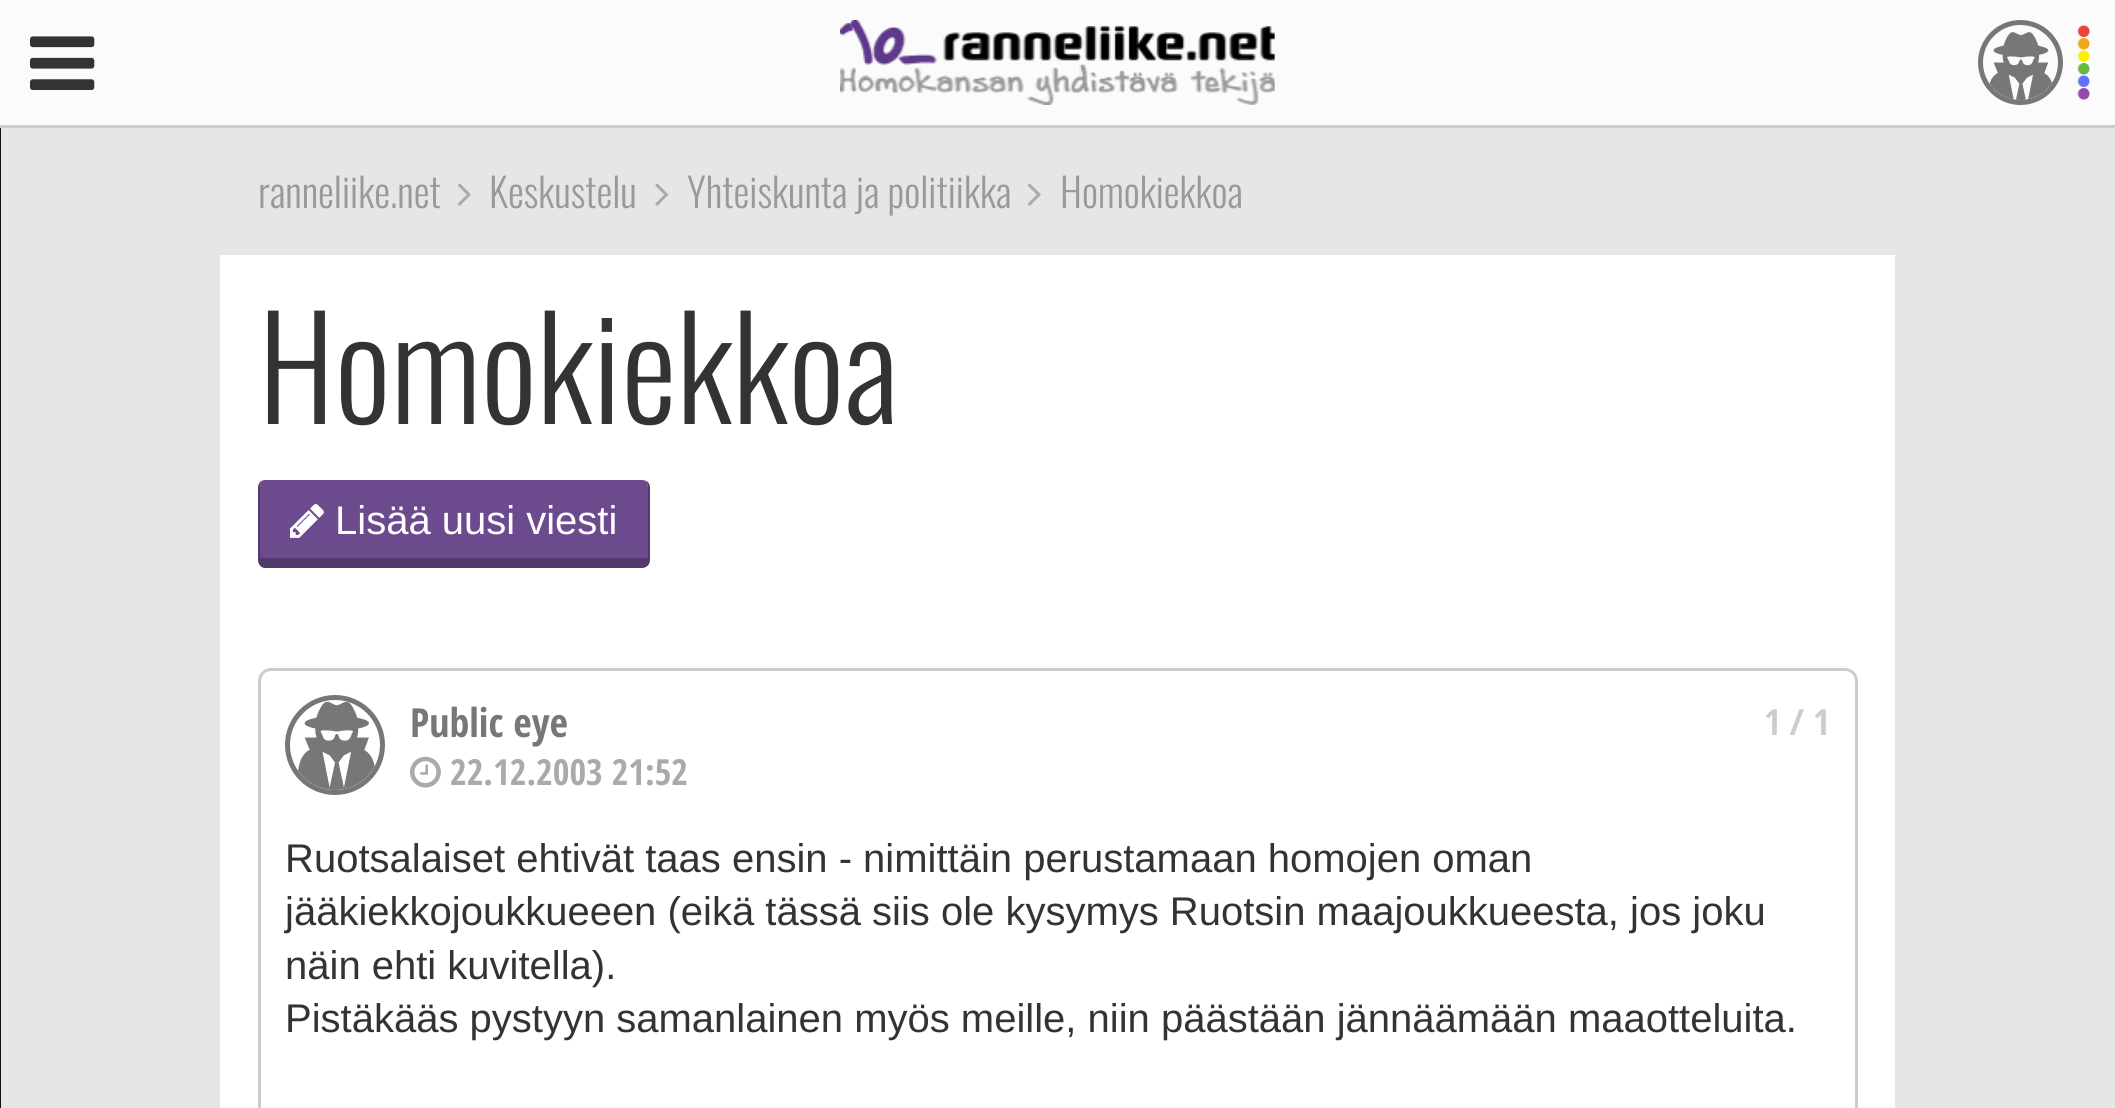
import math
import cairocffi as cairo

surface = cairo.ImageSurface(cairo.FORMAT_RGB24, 2115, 1108)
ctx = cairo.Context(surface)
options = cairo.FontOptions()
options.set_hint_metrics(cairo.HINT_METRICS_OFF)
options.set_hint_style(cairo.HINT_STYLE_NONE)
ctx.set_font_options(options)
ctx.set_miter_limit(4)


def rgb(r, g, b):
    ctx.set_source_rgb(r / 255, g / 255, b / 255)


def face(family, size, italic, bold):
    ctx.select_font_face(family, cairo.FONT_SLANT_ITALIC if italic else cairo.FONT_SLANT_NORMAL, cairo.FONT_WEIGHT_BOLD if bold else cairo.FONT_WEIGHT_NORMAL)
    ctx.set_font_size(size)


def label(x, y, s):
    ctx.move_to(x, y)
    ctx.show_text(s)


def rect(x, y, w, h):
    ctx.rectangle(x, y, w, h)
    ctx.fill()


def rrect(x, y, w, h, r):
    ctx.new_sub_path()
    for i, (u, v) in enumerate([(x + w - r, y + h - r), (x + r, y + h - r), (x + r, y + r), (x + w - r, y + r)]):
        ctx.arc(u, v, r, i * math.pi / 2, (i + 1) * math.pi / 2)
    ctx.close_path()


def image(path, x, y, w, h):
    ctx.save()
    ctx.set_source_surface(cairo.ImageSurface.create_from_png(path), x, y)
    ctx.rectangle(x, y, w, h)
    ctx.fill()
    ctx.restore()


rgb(230, 230, 230)
ctx.paint()
rgb(251, 251, 251)
rect(0, 0, 2115, 125)
rgb(17, 17, 17)
rect(0, 125, 1, 983)
rgb(204, 204, 204)
rect(0, 125, 2115, 3)
image('image0.png', 2077, 25, 13, 75)
image('image1.png', 30, 36, 65, 54)
image('image2.png', 840, 20, 435, 85)
ctx.arc(2020.5, 62.5, 40, 0, 2 * math.pi)
rgb(119, 119, 119)
ctx.set_line_width(5)
ctx.stroke()
image('image3.png', 1989, 32, 63, 68)
face('Oswald Light', 40, 0, 0)
rgb(153, 153, 153)
label(258, 208, 'ranneliike.net')
image('image4.png', 457, 183, 14, 23)
label(489, 208, 'Keskustelu')
image('image5.png', 655, 183, 14, 23)
label(687, 208, 'Yhteiskunta ja politiikka')
image('image4.png', 1027, 183, 14, 23)
label(1060, 208, 'Homokiekkoa')
rgb(255, 255, 255)
rect(220, 255, 1675, 853)
face('Oswald Light', 140, 0, 0)
rgb(51, 51, 51)
label(258, 424, 'Homokiekkoa')
rgb(108, 74, 142)
ctx.new_path()
ctx.move_to(265, 480)
ctx.line_to(642, 480)
ctx.curve_to(645, 480, 648, 483, 648, 488)
ctx.line_to(648, 558)
ctx.line_to(260, 558)
ctx.line_to(260, 488)
ctx.curve_to(260, 483, 262, 480, 265, 480)
ctx.close_path()
ctx.fill()
rgb(82, 57, 108)
ctx.set_fill_rule(cairo.FILL_RULE_EVEN_ODD)
ctx.new_path()
ctx.move_to(265, 480)
ctx.line_to(642, 480)
ctx.curve_to(647, 480, 650, 483, 650, 488)
ctx.line_to(650, 560)
ctx.curve_to(650, 564, 647, 568, 642, 568)
ctx.line_to(265, 568)
ctx.curve_to(261, 568, 258, 564, 258, 560)
ctx.line_to(258, 488)
ctx.curve_to(258, 483, 261, 480, 265, 480)
ctx.close_path()
ctx.move_to(265, 480)
ctx.line_to(642, 480)
ctx.curve_to(645, 480, 648, 483, 648, 488)
ctx.line_to(648, 558)
ctx.line_to(260, 558)
ctx.line_to(260, 488)
ctx.curve_to(260, 483, 262, 480, 265, 480)
ctx.close_path()
ctx.fill()
image('image6.png', 290, 504, 34, 34)
face('Liberation Sans', 40, 0, 0)
rgb(255, 255, 255)
label(335, 534, 'Lisää uusi viesti')
rrect(259.5, 669.5, 1597, 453, 11.5)
rgb(204, 204, 204)
ctx.set_line_width(3)
ctx.stroke()
ctx.arc(335, 745, 47.5, 0, 2 * math.pi)
rgb(119, 119, 119)
ctx.set_line_width(5)
ctx.stroke()
image('image7.png', 298, 701, 77, 89)
face('Open Sans Condensed', 40, 0, 1)
label(410, 737, 'Public eye')
face('Open Sans Condensed', 36, 0, 1)
rgb(204, 204, 204)
label(1764, 735, '1 / 1')
image('image8.png', 410, 756, 31, 32)
rgb(170, 170, 170)
label(450, 785, '22.12.2003 21:52')
face('Liberation Sans', 40, 0, 0)
rgb(51, 51, 51)
label(285, 872, 'Ruotsalaiset ehtivät taas ensin - nimittäin perustamaan homojen oman')
label(285, 925, 'jääkiekkojoukkueeen (eikä tässä siis ole kysymys Ruotsin maajoukkueesta, jos joku')
label(285, 979, 'näin ehti kuvitella).')
label(285, 1032, 'Pistäkääs pystyyn samanlainen myös meille, niin päästään jännäämään maaotteluita.')
surface.write_to_png('render.png')
